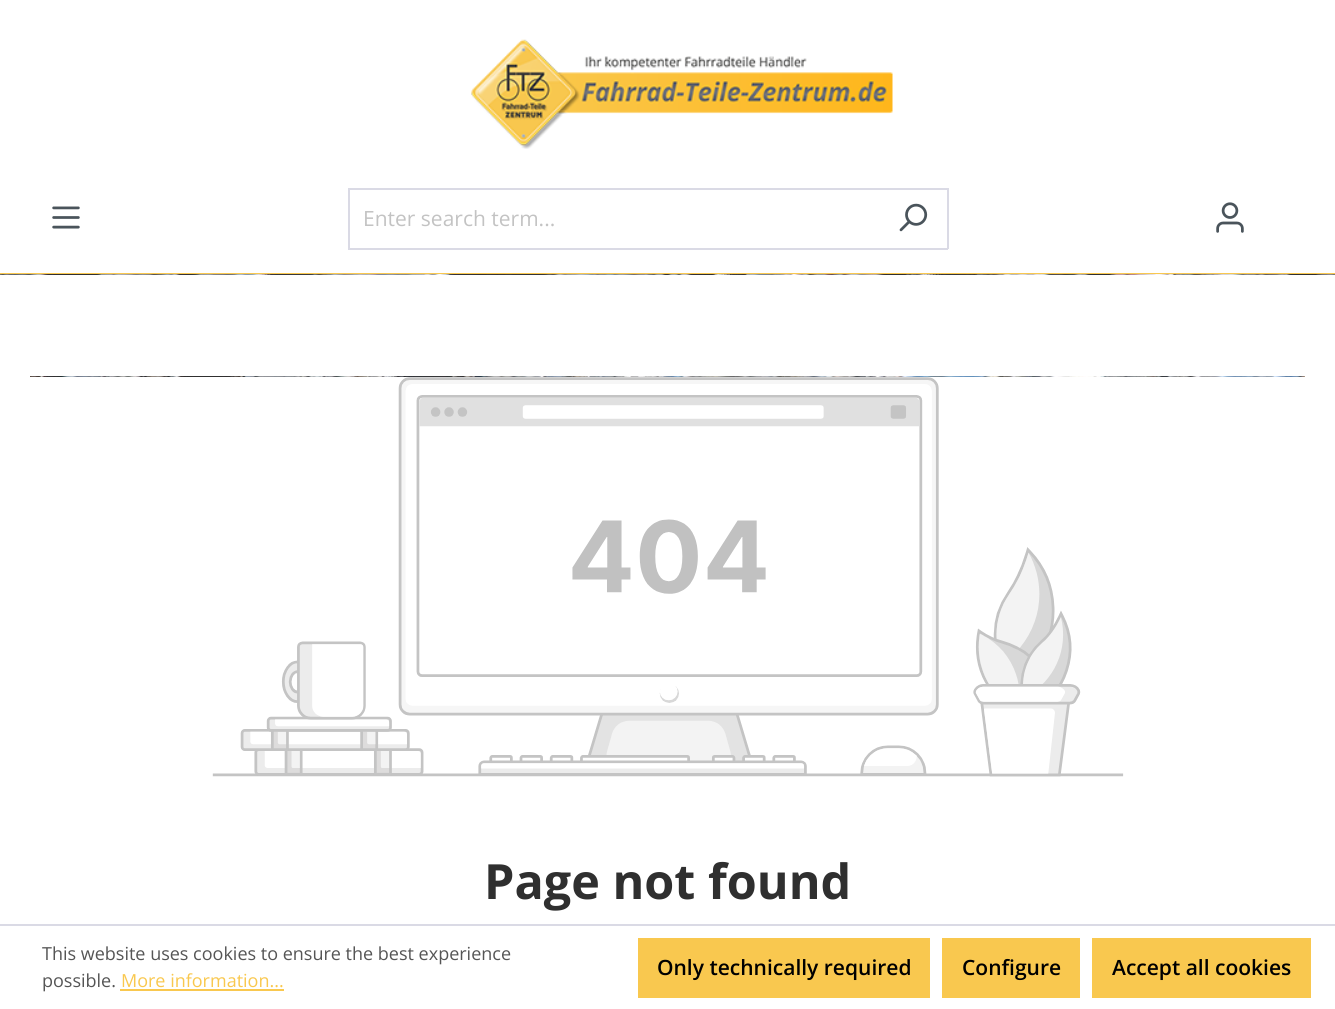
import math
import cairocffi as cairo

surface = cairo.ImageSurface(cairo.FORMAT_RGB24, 1335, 1009)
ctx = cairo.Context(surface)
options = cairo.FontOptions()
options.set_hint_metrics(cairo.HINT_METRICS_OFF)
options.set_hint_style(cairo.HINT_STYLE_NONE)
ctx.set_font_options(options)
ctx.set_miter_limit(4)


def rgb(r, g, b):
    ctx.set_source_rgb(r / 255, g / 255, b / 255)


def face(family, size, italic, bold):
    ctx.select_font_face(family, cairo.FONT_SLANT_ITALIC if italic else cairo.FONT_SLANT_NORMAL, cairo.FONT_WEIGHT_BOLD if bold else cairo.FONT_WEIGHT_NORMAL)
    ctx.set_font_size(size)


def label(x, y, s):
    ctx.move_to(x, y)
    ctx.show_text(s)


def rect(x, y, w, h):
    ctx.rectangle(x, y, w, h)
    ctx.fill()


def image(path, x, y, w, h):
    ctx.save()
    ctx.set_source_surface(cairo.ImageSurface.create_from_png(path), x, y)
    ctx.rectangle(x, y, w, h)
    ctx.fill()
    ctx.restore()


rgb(255, 255, 255)
ctx.paint()
image('image0.png', 471, 39, 422, 110)
image('image1.png', 52, 206, 28, 23)
rgb(218, 218, 229)
rect(348, 188, 600, 2)
rect(348, 248, 531, 2)
rect(348, 188, 2, 61)
face('Open Sans', 21, 0, 0)
rgb(195, 195, 195)
label(363, 226, 'Enter search term...')
rgb(218, 218, 229)
rect(947, 188, 2, 61)
rect(878, 248, 70, 2)
image('image2.png', 899, 203, 29, 29)
image('image3.png', 1216, 202, 28, 31)
rgb(249, 200, 79)
rect(0, 273, 1335, 2)
image('image4.png', 0, 274, 1335, 1)
image('image5.png', 30, 376, 1275, 1)
image('image6.png', 212, 377, 912, 400)
face('Open Sans', 48.5, 0, 1)
rgb(47, 47, 47)
label(484, 899, 'Page not found')
rgb(218, 218, 229)
rect(0, 924, 1335, 2)
face('Open Sans', 18, 0, 0)
rgb(85, 85, 85)
label(42, 960, 'This website uses cookies to ensure the best experience')
label(42, 987, 'possible.')
rgb(249, 200, 79)
label(121, 987, 'More information...')
rect(120, 989, 164, 2)
rect(638, 938, 292, 60)
face('Open Sans SemiBold', 21, 0, 0)
rgb(0, 0, 0)
label(657, 975, 'Only technically required')
rgb(249, 200, 79)
rect(942, 938, 138, 60)
rgb(0, 0, 0)
label(962, 975, 'Configure')
rgb(249, 200, 79)
rect(1092, 938, 219, 60)
rgb(0, 0, 0)
label(1112, 975, 'Accept all cookies')
surface.write_to_png('render.png')
